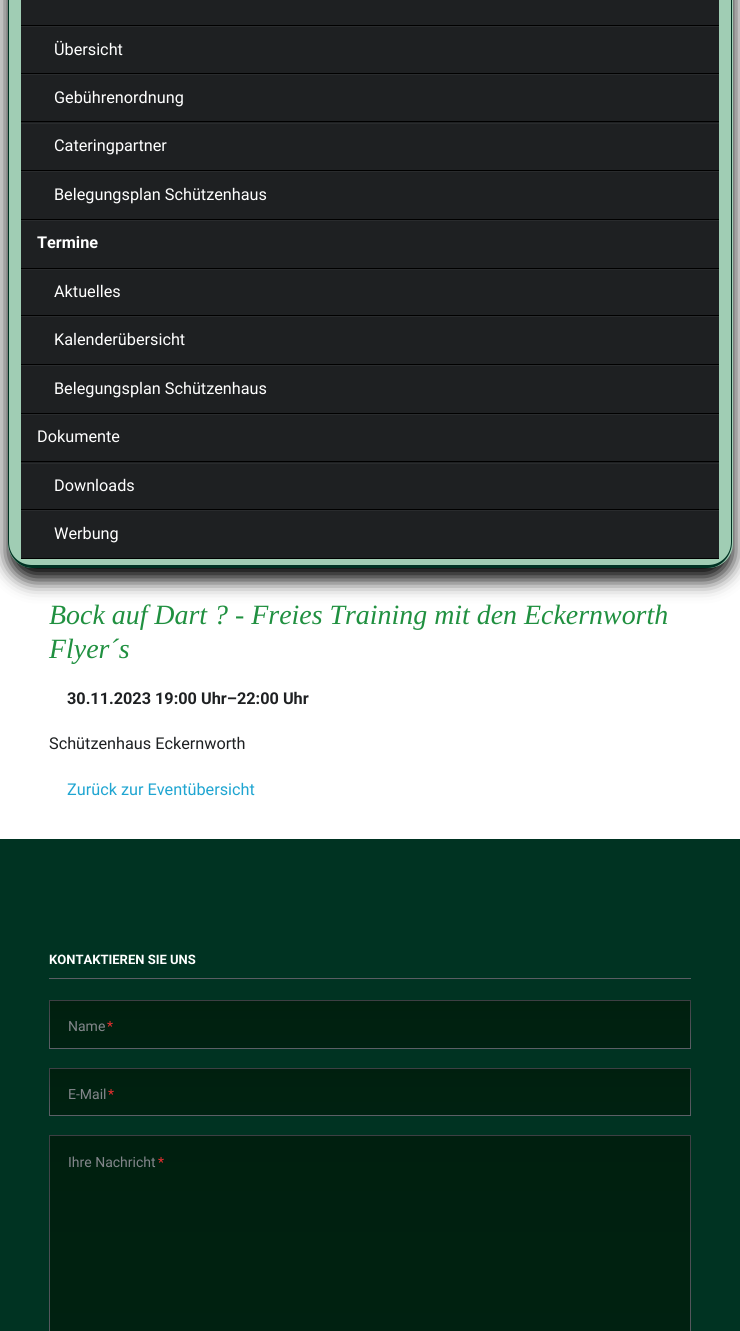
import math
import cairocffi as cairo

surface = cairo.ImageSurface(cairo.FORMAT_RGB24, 740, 1331)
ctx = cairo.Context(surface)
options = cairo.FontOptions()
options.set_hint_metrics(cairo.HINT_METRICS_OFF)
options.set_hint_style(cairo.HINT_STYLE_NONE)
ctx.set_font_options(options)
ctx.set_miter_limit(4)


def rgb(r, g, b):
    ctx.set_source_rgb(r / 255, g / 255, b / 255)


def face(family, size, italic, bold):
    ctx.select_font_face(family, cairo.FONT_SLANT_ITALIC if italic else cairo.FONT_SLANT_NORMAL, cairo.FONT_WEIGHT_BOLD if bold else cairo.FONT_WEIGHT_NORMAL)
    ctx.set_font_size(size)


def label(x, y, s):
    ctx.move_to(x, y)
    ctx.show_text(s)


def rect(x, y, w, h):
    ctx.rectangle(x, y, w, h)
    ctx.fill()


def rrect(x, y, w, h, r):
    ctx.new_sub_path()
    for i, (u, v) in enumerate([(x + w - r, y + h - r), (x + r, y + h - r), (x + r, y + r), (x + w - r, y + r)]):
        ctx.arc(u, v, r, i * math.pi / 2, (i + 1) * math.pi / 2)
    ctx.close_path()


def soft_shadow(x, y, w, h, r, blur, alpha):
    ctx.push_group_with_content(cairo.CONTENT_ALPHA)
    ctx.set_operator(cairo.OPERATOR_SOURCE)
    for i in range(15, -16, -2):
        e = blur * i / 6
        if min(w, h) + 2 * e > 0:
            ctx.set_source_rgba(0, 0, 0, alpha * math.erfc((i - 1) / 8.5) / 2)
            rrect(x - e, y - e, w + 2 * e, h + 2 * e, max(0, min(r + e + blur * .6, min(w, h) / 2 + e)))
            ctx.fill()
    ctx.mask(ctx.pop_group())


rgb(255, 255, 255)
ctx.paint()
rgb(0, 0, 0)
soft_shadow(8, -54, 725, 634, 25, 9.5, 1)
rgb(160, 205, 180)
ctx.new_path()
ctx.move_to(8, -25)
ctx.line_to(733, -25)
ctx.line_to(733, 543)
ctx.curve_to(733, 557, 722, 568, 708, 568)
ctx.line_to(33, 568)
ctx.curve_to(19, 568, 8, 557, 8, 543)
ctx.close_path()
ctx.fill()
rgb(0, 50, 35)
ctx.set_fill_rule(cairo.FILL_RULE_EVEN_ODD)
ctx.new_path()
ctx.move_to(8, -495)
ctx.line_to(732, -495)
ctx.line_to(732, 542)
ctx.curve_to(732, 556, 721, 568, 708, 568)
ctx.line_to(32, 568)
ctx.curve_to(19, 568, 8, 556, 8, 542)
ctx.close_path()
ctx.move_to(9, -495)
ctx.line_to(731, -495)
ctx.line_to(731, 542)
ctx.curve_to(731, 555, 721, 565, 708, 565)
ctx.line_to(32, 565)
ctx.curve_to(19, 565, 9, 555, 9, 542)
ctx.close_path()
ctx.fill()
rgb(30, 32, 34)
rect(21, 0, 698, 558)
rgb(0, 0, 0)
rect(21, 25, 698, 1)
rgb(41, 43, 45)
rect(21, 26, 698, 1)
rgb(0, 0, 0)
rect(21, 73, 698, 1)
face('Roboto', 16.25, 0, 0)
rgb(255, 255, 255)
label(54, 55, 'Übersicht')
rgb(41, 43, 45)
rect(21, 74, 698, 1)
rgb(0, 0, 0)
rect(21, 121, 698, 1)
rgb(255, 255, 255)
label(54, 103, 'Gebührenordnung')
rgb(41, 43, 45)
rect(21, 123, 698, 1)
rgb(0, 0, 0)
rect(21, 170, 698, 1)
rgb(255, 255, 255)
label(54, 151, 'Cateringpartner')
rgb(41, 43, 45)
rect(21, 171, 698, 1)
rgb(0, 0, 0)
rect(21, 219, 698, 1)
rgb(255, 255, 255)
label(54, 200, 'Belegungsplan Schützenhaus')
rgb(41, 43, 45)
rect(21, 220, 698, 1)
rgb(0, 0, 0)
rect(21, 268, 698, 1)
face('Roboto', 16.25, 0, 1)
rgb(255, 255, 255)
label(37, 248, 'Termine')
rgb(41, 43, 45)
rect(21, 269, 698, 1)
rgb(0, 0, 0)
rect(21, 315, 698, 1)
face('Roboto', 16.25, 0, 0)
rgb(255, 255, 255)
label(54, 297, 'Aktuelles')
rgb(41, 43, 45)
rect(21, 316, 698, 1)
rgb(0, 0, 0)
rect(21, 364, 698, 1)
rgb(255, 255, 255)
label(54, 345, 'Kalenderübersicht')
rgb(41, 43, 45)
rect(21, 365, 698, 1)
rgb(0, 0, 0)
rect(21, 413, 698, 1)
rgb(255, 255, 255)
label(54, 394, 'Belegungsplan Schützenhaus')
rgb(41, 43, 45)
rect(21, 414, 698, 1)
rgb(0, 0, 0)
rect(21, 461, 698, 1)
rgb(255, 255, 255)
label(37, 442, 'Dokumente')
rgb(41, 43, 45)
rect(21, 463, 698, 1)
rgb(0, 0, 0)
rect(21, 509, 698, 1)
rgb(255, 255, 255)
label(54, 491, 'Downloads')
rgb(41, 43, 45)
rect(21, 510, 698, 1)
rgb(0, 0, 0)
rect(21, 558, 698, 1)
rgb(255, 255, 255)
label(54, 539, 'Werbung')
face('Liberation Serif', 27.9, 1, 0)
rgb(32, 144, 64)
label(49, 624, 'Bock auf Dart ? - Freies Training mit den Eckernworth')
label(49, 658, 'Flyer´s')
face('Roboto', 16.25, 0, 1)
rgb(30, 32, 34)
label(67, 704, '30.11.2023 19:00 Uhr–22:00 Uhr')
face('Roboto', 16.25, 0, 0)
label(49, 749, 'Schützenhaus Eckernworth')
rgb(31, 165, 209)
label(67, 795, 'Zurück zur Eventübersicht')
rgb(0, 51, 34)
rect(0, 839, 740, 492)
rgb(90, 93, 99)
rect(49, 978, 642, 1)
face('Roboto', 13, 0, 1)
rgb(255, 255, 255)
label(49, 964, 'KONTAKTIEREN SIE UNS')
gradient = cairo.LinearGradient(370, 1000, 370, 1049)
gradient.add_color_stop_rgba(0, 0, 0.122, 0.059, 1)
gradient.add_color_stop_rgba(0.5, 0, 0.129, 0.063, 1)
gradient.add_color_stop_rgba(1, 0, 0.129, 0.067, 1)
ctx.set_source(gradient)
rect(50, 1001, 640, 47)
gradient = cairo.LinearGradient(691, 1000, 691, 1049)
gradient.add_color_stop_rgba(0, 0.239, 0.247, 0.263, 1)
gradient.add_color_stop_rgba(1, 0.361, 0.373, 0.4, 1)
ctx.set_source(gradient)
rect(690, 1000, 1, 49)
gradient = cairo.LinearGradient(49, 1000, 49, 1049)
gradient.add_color_stop_rgba(0, 0.239, 0.247, 0.263, 1)
gradient.add_color_stop_rgba(1, 0.361, 0.373, 0.4, 1)
ctx.set_source(gradient)
rect(49, 1000, 1, 49)
rgb(61, 63, 67)
ctx.set_fill_rule(cairo.FILL_RULE_WINDING)
ctx.new_path()
ctx.move_to(49, 1000)
ctx.line_to(691, 1000)
ctx.line_to(690, 1001)
ctx.line_to(50, 1001)
ctx.close_path()
ctx.fill()
rgb(92, 95, 102)
ctx.new_path()
ctx.move_to(691, 1049)
ctx.line_to(49, 1049)
ctx.line_to(50, 1048)
ctx.line_to(690, 1048)
ctx.close_path()
ctx.fill()
face('Roboto', 14, 0, 0)
rgb(131, 134, 139)
label(68, 1031, 'Name')
rgb(229, 47, 47)
label(107, 1031, '*')
gradient = cairo.LinearGradient(370, 1068, 370, 1116)
gradient.add_color_stop_rgba(0, 0, 0.122, 0.059, 1)
gradient.add_color_stop_rgba(0.5, 0, 0.129, 0.063, 1)
gradient.add_color_stop_rgba(1, 0, 0.129, 0.067, 1)
ctx.set_source(gradient)
rect(50, 1069, 640, 46)
gradient = cairo.LinearGradient(691, 1068, 691, 1116)
gradient.add_color_stop_rgba(0, 0.239, 0.247, 0.263, 1)
gradient.add_color_stop_rgba(1, 0.361, 0.373, 0.4, 1)
ctx.set_source(gradient)
rect(690, 1068, 1, 48)
gradient = cairo.LinearGradient(49, 1068, 49, 1116)
gradient.add_color_stop_rgba(0, 0.239, 0.247, 0.263, 1)
gradient.add_color_stop_rgba(1, 0.361, 0.373, 0.4, 1)
ctx.set_source(gradient)
rect(49, 1068, 1, 48)
rgb(61, 63, 67)
ctx.new_path()
ctx.move_to(49, 1068)
ctx.line_to(691, 1068)
ctx.line_to(690, 1069)
ctx.line_to(50, 1069)
ctx.close_path()
ctx.fill()
rgb(92, 95, 102)
ctx.new_path()
ctx.move_to(691, 1116)
ctx.line_to(49, 1116)
ctx.line_to(50, 1115)
ctx.line_to(690, 1115)
ctx.close_path()
ctx.fill()
rgb(131, 134, 139)
label(68, 1099, 'E-Mail')
rgb(229, 47, 47)
label(108, 1099, '*')
gradient = cairo.LinearGradient(370, 1135, 370, 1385)
gradient.add_color_stop_rgba(0, 0, 0.122, 0.059, 1)
gradient.add_color_stop_rgba(0.5, 0, 0.129, 0.063, 1)
gradient.add_color_stop_rgba(1, 0, 0.129, 0.067, 1)
ctx.set_source(gradient)
rect(50, 1136, 640, 195)
gradient = cairo.LinearGradient(691, 1135, 691, 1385)
gradient.add_color_stop_rgba(0, 0.239, 0.247, 0.263, 1)
gradient.add_color_stop_rgba(1, 0.361, 0.373, 0.4, 1)
ctx.set_source(gradient)
rect(690, 1135, 1, 196)
gradient = cairo.LinearGradient(49, 1135, 49, 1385)
gradient.add_color_stop_rgba(0, 0.239, 0.247, 0.263, 1)
gradient.add_color_stop_rgba(1, 0.361, 0.373, 0.4, 1)
ctx.set_source(gradient)
rect(49, 1135, 1, 196)
rgb(61, 63, 67)
ctx.new_path()
ctx.move_to(49, 1135)
ctx.line_to(691, 1135)
ctx.line_to(690, 1136)
ctx.line_to(50, 1136)
ctx.close_path()
ctx.fill()
rgb(131, 134, 139)
label(68, 1167, 'Ihre Nachricht')
rgb(229, 47, 47)
label(158, 1167, '*')
surface.write_to_png('render.png')
